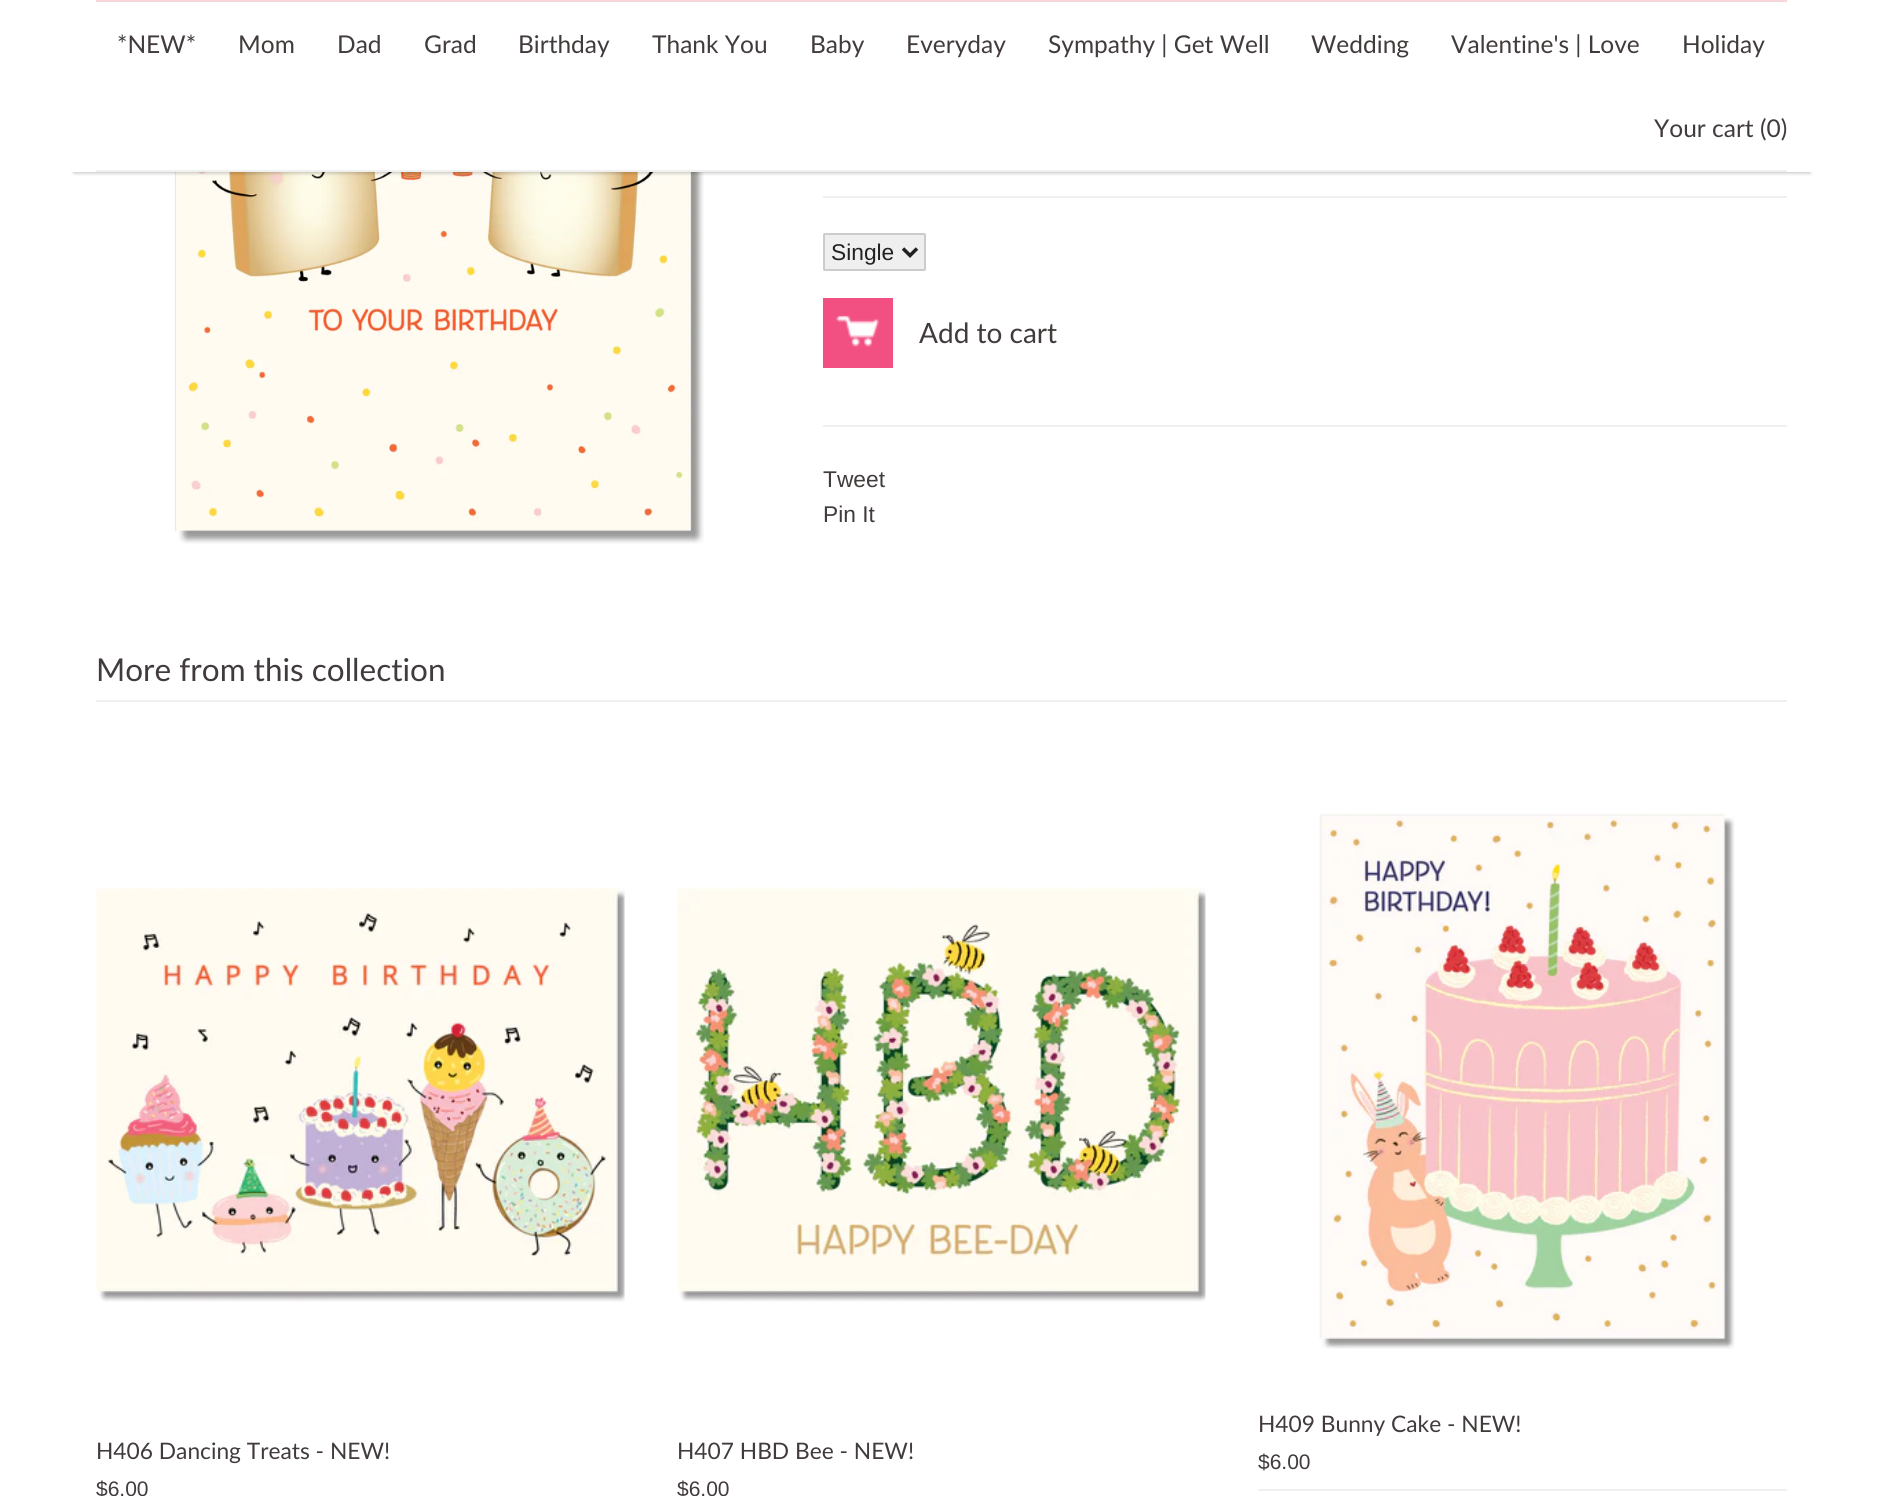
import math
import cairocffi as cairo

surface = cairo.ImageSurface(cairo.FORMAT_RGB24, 1882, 1496)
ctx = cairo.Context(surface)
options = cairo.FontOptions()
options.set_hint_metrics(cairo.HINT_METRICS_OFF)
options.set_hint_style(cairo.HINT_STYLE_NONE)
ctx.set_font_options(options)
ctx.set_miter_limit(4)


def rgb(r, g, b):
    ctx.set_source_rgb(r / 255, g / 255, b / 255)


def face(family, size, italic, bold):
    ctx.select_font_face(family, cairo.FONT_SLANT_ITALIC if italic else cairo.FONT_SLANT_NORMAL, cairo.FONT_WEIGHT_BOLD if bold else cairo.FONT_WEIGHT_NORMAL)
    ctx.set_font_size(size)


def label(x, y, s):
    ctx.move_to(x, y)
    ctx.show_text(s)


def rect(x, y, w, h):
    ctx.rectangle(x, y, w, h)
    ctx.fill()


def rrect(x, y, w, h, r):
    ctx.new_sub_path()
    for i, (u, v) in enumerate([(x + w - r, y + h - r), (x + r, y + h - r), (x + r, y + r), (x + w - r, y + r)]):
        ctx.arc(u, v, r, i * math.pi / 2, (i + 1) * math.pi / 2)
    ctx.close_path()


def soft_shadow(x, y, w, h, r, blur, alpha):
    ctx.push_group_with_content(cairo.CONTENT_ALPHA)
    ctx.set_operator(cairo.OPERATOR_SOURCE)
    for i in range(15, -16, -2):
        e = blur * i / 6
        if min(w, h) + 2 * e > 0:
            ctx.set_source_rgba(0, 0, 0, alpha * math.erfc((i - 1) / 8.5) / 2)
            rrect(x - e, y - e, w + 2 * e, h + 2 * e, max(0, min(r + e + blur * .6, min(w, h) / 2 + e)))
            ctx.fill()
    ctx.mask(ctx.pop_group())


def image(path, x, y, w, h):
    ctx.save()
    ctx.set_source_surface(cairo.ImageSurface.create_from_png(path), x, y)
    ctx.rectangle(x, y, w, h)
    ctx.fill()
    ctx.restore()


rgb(255, 255, 255)
ctx.paint()
image('image0.png', 174, 172, 530, 372)
rgb(0, 0, 0)
soft_shadow(74, 9, 1736, 164, 0, 2, 0.25)
rgb(255, 255, 255)
rect(71, 6, 1742, 166)
rgb(247, 215, 220)
rect(96, 0, 1691, 2)
rgb(240, 240, 240)
rect(96, 170, 1691, 2)
face('Lato', 24.5, 0, 0)
rgb(66, 59, 59)
label(117, 53, '*NEW*')
label(238, 53, 'Mom')
label(337, 53, 'Dad')
label(424, 53, 'Grad')
label(518, 53, 'Birthday')
label(652, 53, 'Thank You')
label(810, 53, 'Baby')
label(906, 53, 'Everyday')
label(1048, 53, 'Sympathy | Get Well')
label(1311, 53, 'Wedding')
label(1451, 53, 'Valentine\'s | Love')
label(1682, 53, 'Holiday')
label(1654, 137, 'Your cart (0)')
rgb(240, 240, 240)
rect(823, 196, 964, 2)
rgb(239, 239, 239)
rrect(824, 234, 101, 36, 1)
ctx.fill_preserve()
rgb(204, 204, 204)
ctx.stroke()
ctx.new_path()
ctx.move_to(903, 248.5)
ctx.line_to(910, 255.5)
ctx.line_to(917, 248.5)
rgb(34, 34, 34)
ctx.set_line_width(3.5)
ctx.stroke()
face('Liberation Sans', 22.75, 0, 0)
label(831, 260, 'Single')
rgb(242, 80, 131)
rect(823, 298, 70, 70)
image('image1.png', 836, 315, 43, 32)
face('Lato', 28, 0, 0)
rgb(66, 59, 59)
label(919, 343, 'Add to cart')
rgb(240, 240, 240)
rect(823, 425, 964, 2)
face('Liberation Sans', 22.75, 0, 0)
rgb(66, 59, 59)
label(823, 487, 'Tweet')
label(823, 522, 'Pin It')
rgb(240, 240, 240)
rect(96, 700, 1691, 2)
face('Lato', 31.5, 0, 0)
rgb(66, 59, 59)
label(96, 681, 'More from this collection')
image('image2.png', 96, 887, 529, 415)
face('Lato', 22.75, 0, 0)
label(96, 1459, 'H406 Dancing Treats - NEW!')
face('Liberation Sans', 21, 0, 0)
label(96, 1496, '$6.00')
image('image3.png', 677, 886, 529, 416)
face('Lato', 22.75, 0, 0)
label(677, 1459, 'H407 HBD Bee - NEW!')
face('Liberation Sans', 21, 0, 0)
label(677, 1496, '$6.00')
rgb(240, 240, 240)
rect(1258, 1489, 529, 2)
image('image4.png', 1319, 813, 416, 536)
face('Lato', 22.75, 0, 0)
rgb(66, 59, 59)
label(1258, 1432, 'H409 Bunny Cake - NEW!')
face('Liberation Sans', 21, 0, 0)
label(1258, 1469, '$6.00')
surface.write_to_png('render.png')
